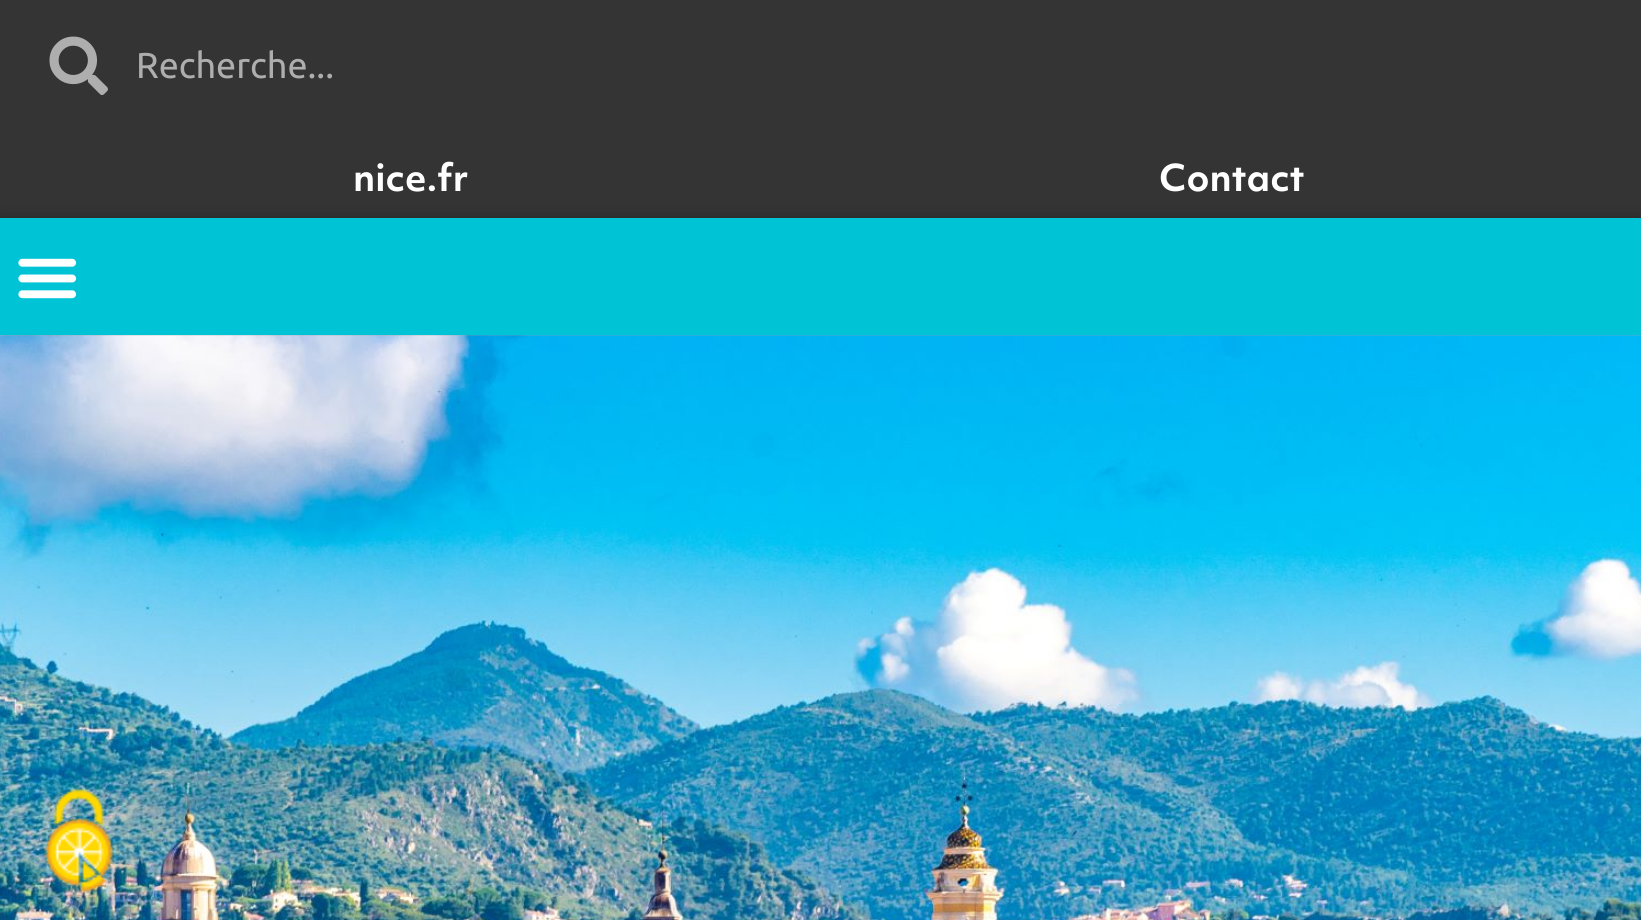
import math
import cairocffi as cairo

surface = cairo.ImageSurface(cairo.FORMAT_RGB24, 1641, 920)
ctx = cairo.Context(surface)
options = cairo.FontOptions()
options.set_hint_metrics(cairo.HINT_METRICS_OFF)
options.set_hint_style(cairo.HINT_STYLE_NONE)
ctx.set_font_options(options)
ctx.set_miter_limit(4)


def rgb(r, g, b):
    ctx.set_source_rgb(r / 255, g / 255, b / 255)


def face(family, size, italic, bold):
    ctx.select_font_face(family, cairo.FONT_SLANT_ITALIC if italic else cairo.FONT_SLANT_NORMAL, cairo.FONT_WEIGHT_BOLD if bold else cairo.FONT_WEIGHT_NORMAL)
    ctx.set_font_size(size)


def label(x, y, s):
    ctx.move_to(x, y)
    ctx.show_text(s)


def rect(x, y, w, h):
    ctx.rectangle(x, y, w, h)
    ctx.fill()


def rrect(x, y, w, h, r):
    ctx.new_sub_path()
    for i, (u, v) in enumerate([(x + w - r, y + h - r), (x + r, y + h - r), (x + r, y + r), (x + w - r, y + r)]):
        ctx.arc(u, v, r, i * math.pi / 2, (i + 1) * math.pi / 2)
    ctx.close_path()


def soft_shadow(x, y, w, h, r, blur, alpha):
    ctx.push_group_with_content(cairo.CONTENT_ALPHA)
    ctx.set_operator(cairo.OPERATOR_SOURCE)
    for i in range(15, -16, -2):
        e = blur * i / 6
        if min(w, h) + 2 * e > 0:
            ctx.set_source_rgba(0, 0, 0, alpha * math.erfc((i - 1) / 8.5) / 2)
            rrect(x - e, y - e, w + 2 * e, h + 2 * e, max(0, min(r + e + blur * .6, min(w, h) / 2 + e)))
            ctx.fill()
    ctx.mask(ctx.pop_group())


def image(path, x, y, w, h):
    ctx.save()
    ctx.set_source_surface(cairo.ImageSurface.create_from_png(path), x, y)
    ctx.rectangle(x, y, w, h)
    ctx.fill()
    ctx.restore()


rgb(255, 255, 255)
ctx.paint()
rgb(52, 52, 52)
rect(0, 0, 1641, 218)
image('image0.png', 49, 36, 59, 59)
face('Ubuntu', 36, 0, 0)
rgb(174, 174, 174)
label(136, 78, 'Recherche...')
face('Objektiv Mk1', 36, 0, 1)
rgb(255, 255, 255)
label(353, 191, 'nice.fr')
label(1159, 191, 'Contact')
rgb(0, 0, 0)
soft_shadow(0, 225, 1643, 117, 0, 11, 0.5)
rgb(0, 195, 213)
rect(0, 218, 1641, 117)
image('image1.png', 18, 258, 59, 41)
image('image2.png', 0, 335, 1641, 585)
image('image3.png', 44, 789, 70, 105)
surface.write_to_png('render.png')
